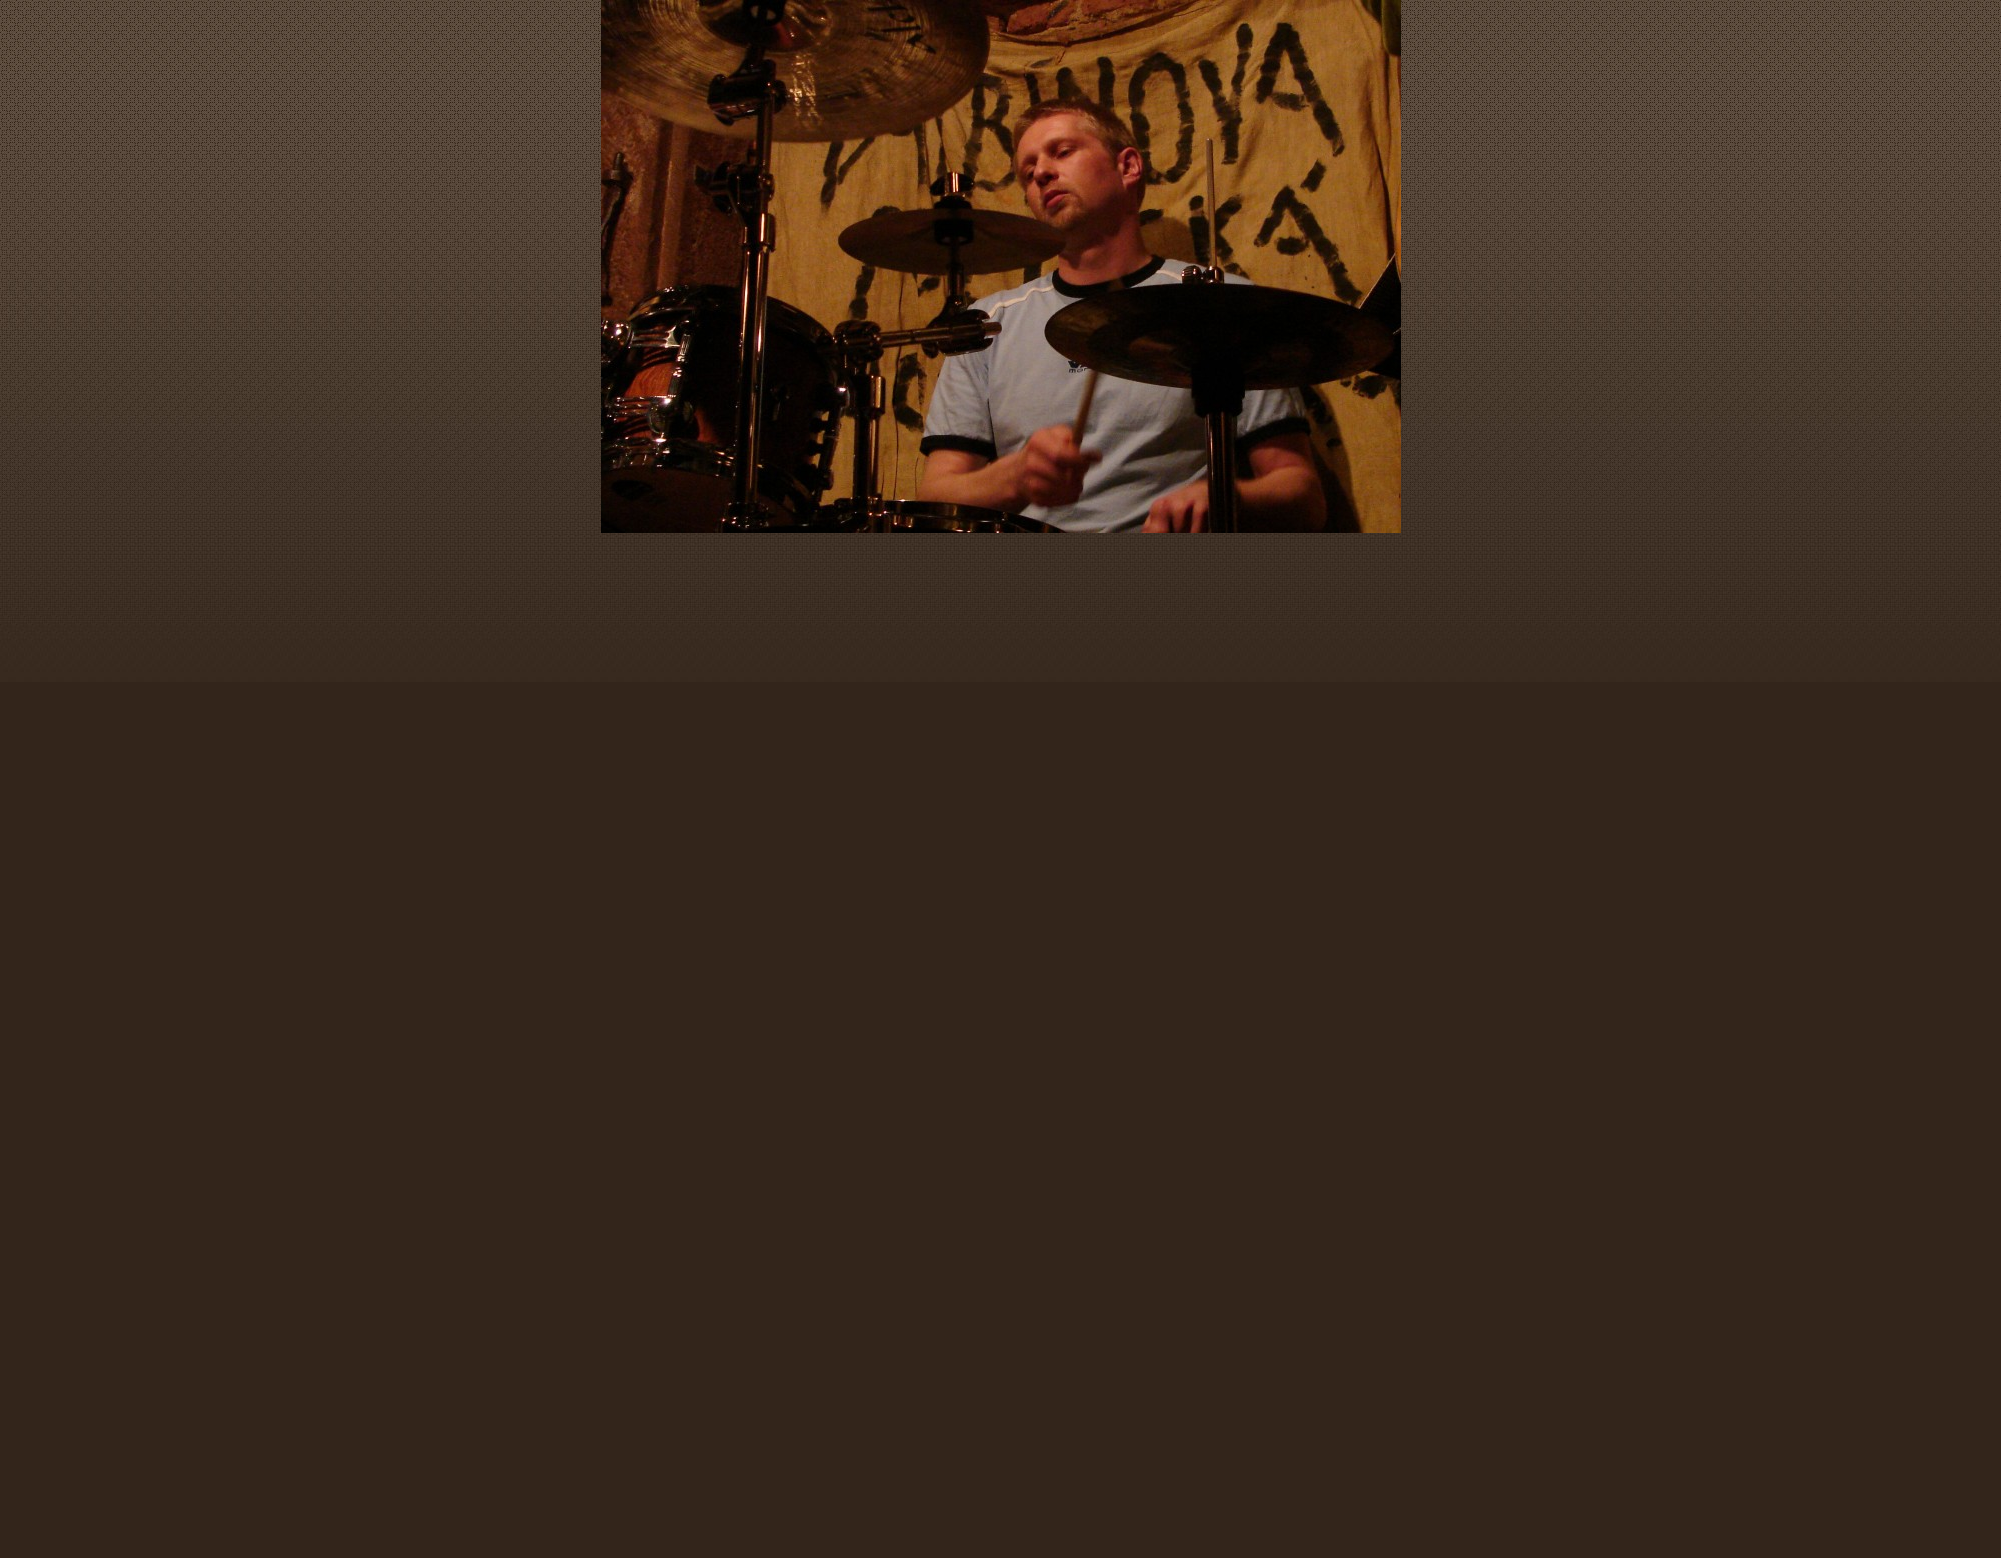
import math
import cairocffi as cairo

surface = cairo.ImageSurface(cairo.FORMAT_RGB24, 2001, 1558)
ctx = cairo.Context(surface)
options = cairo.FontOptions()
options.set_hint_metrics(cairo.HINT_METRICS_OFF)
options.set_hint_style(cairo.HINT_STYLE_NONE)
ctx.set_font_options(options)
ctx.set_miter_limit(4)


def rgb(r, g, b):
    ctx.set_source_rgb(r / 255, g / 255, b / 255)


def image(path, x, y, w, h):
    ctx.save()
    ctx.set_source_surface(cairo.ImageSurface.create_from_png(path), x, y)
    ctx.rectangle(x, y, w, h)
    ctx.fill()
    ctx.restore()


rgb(51, 37, 27)
ctx.paint()
image('image0.png', 0, 0, 2001, 682)
image('image1.png', 601, 0, 800, 533)
surface.write_to_png('render.png')
